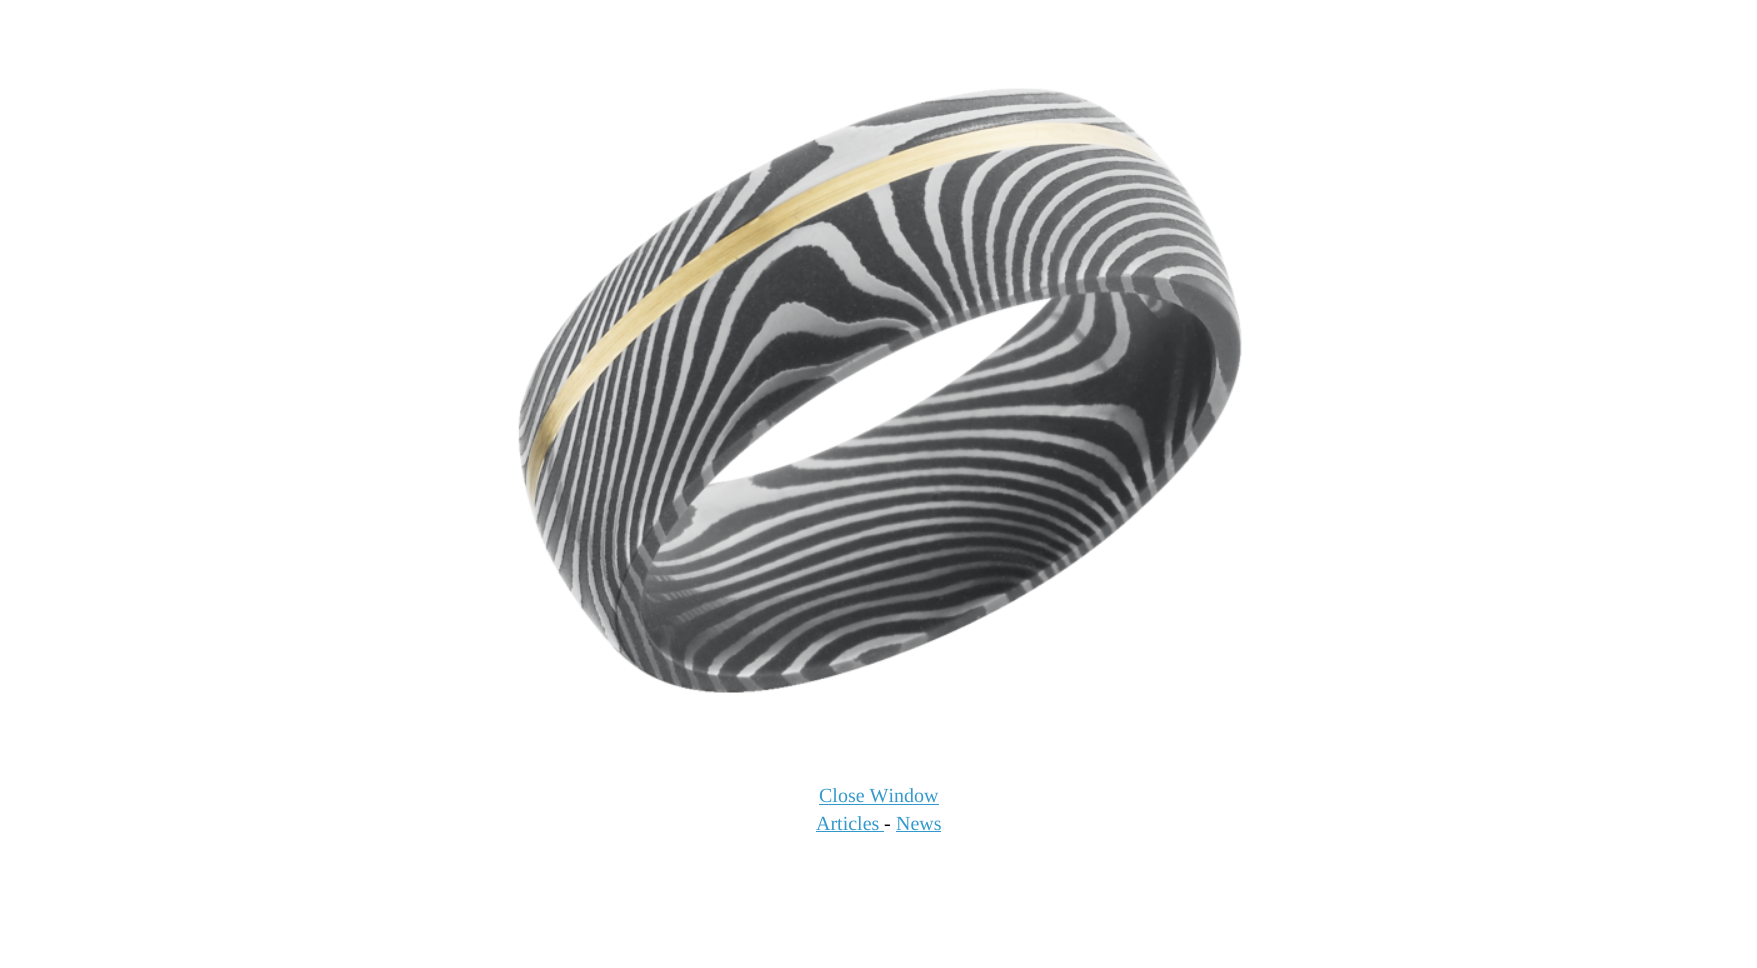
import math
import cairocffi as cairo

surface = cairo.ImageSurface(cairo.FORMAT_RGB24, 1757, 968)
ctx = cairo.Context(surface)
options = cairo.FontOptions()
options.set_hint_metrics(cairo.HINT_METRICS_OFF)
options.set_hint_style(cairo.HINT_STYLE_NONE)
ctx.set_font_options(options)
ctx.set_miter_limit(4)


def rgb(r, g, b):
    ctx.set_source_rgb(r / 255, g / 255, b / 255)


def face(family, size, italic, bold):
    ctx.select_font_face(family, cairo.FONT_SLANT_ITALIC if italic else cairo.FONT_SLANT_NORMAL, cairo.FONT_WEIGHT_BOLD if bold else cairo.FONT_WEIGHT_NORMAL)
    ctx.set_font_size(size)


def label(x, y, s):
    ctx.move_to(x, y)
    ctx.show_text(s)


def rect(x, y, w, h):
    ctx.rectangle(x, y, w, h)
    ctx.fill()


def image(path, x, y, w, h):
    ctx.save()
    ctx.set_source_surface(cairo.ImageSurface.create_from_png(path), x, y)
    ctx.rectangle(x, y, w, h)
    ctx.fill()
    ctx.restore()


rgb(255, 255, 255)
ctx.paint()
image('image0.png', 518, 88, 724, 605)
face('Liberation Serif', 20, 0, 0)
rgb(51, 153, 204)
label(819, 802, 'Close Window')
rect(819, 804, 120, 1)
label(816, 830, 'Articles')
rect(816, 831, 68, 1)
rgb(0, 0, 0)
label(884, 830, '-')
rgb(51, 153, 204)
label(896, 830, 'News')
rect(896, 831, 45, 1)
surface.write_to_png('render.png')
